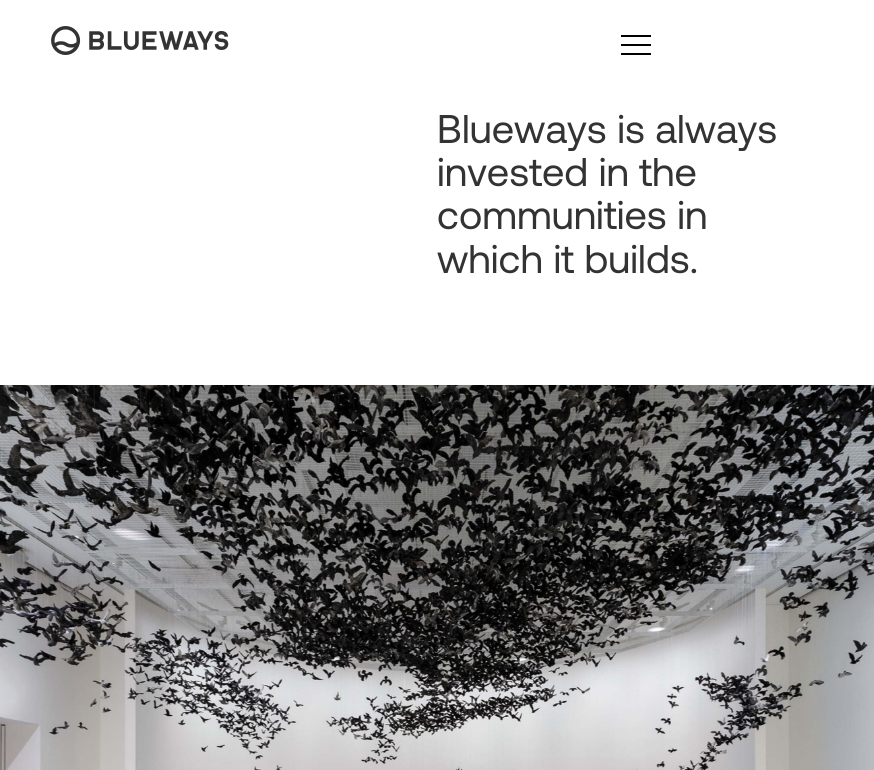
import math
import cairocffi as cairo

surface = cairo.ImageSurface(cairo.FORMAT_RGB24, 874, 770)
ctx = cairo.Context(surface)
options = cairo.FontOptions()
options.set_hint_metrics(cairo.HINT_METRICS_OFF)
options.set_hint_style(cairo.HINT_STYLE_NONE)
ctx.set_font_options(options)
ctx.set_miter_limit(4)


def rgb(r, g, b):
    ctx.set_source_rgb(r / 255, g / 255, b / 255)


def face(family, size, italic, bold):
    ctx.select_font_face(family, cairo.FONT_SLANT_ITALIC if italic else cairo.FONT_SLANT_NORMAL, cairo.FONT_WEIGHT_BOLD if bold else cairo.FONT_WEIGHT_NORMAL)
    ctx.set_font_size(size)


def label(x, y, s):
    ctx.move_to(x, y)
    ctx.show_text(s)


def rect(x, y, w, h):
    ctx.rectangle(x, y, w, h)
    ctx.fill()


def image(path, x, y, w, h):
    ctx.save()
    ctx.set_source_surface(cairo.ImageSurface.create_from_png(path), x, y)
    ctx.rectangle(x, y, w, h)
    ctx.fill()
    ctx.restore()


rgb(255, 255, 255)
ctx.paint()
image('image0.png', 51, 26, 178, 29)
rgb(0, 0, 0)
rect(621, 35, 30, 2)
rect(621, 44, 30, 2)
rect(621, 53, 30, 2)
face('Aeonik', 40, 0, 0)
rgb(51, 51, 51)
label(437, 143, 'Blueways is always')
label(437, 186, 'invested in the')
label(437, 229, 'communities in')
label(437, 273, 'which it builds.')
image('image1.png', 0, 385, 874, 385)
surface.write_to_png('render.png')
